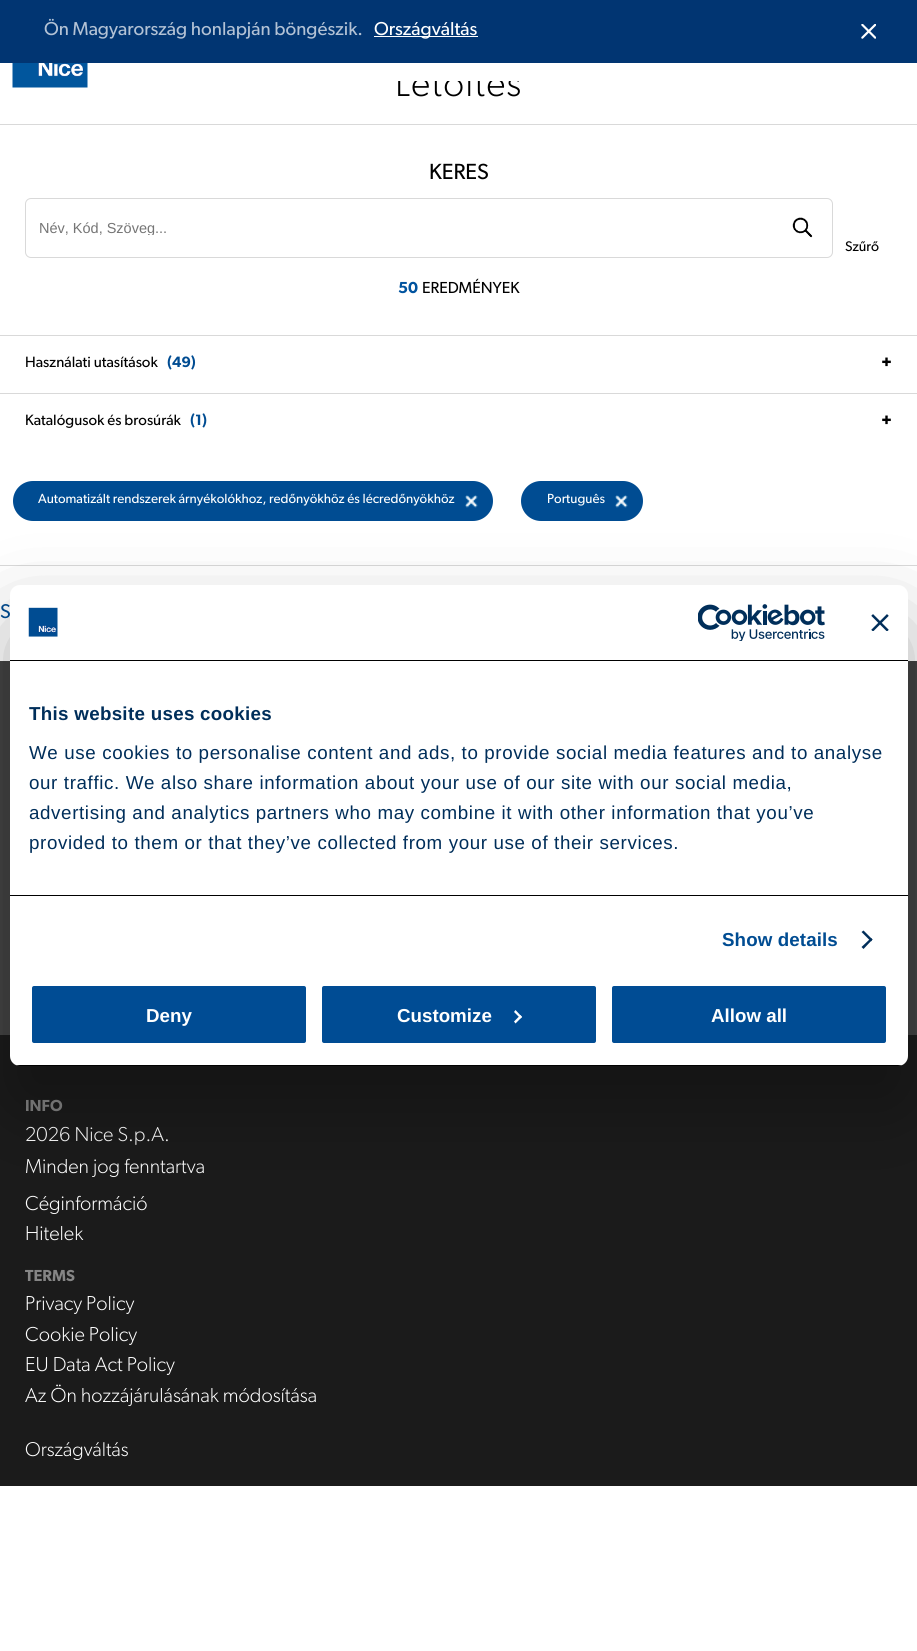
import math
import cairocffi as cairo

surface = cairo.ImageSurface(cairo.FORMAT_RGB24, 917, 1651)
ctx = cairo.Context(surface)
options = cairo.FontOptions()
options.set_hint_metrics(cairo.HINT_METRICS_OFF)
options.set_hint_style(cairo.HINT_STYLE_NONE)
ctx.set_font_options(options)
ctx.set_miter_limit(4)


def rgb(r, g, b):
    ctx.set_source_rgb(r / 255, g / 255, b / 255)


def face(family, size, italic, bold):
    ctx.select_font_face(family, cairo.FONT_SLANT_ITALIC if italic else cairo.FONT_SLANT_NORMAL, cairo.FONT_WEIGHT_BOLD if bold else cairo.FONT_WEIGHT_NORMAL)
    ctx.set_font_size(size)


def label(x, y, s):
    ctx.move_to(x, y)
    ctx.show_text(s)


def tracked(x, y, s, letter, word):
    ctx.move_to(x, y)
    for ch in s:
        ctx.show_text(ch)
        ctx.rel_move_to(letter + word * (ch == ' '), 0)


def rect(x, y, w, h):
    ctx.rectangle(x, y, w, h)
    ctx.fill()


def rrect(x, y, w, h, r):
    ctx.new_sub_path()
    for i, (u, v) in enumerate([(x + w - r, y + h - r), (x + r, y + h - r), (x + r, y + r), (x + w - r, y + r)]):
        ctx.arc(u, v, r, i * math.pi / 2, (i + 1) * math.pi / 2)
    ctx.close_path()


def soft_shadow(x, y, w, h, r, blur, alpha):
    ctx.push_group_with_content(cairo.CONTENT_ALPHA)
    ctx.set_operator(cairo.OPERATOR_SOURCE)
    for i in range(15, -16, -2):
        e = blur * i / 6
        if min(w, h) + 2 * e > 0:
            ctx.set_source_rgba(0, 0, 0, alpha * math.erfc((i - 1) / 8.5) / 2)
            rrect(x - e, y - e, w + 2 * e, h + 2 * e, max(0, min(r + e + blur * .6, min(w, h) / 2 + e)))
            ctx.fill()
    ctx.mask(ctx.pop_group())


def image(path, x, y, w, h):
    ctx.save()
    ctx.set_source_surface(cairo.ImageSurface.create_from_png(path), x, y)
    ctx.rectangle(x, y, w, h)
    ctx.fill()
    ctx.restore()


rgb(255, 255, 255)
ctx.paint()
rgb(1, 53, 114)
rect(0, 0, 917, 63)
face('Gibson', 18.75, 0, 0)
rgb(179, 194, 213)
label(44, 35, 'Ön Magyarország honlapján böngészik.')
rgb(255, 255, 255)
rect(374, 36, 104, 1)
label(374, 35, 'Országváltás')
image('image0.png', 861, 24, 15, 15)
rgb(67, 67, 67)
rect(0, 661, 917, 374)
rgb(27, 27, 27)
rect(0, 1035, 917, 451)
face('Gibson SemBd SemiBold', 16, 0, 0)
rgb(133, 133, 133)
label(25, 1111, 'INFO')
face('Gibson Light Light', 20.25, 0, 0)
rgb(255, 255, 255)
label(25, 1141, '2026 Nice S.p.A.')
label(25, 1173, 'Minden jog fenntartva')
label(25, 1210, 'Céginformáció')
label(25, 1240, 'Hitelek')
face('Gibson SemBd SemiBold', 16, 0, 0)
rgb(133, 133, 133)
label(25, 1281, 'TERMS')
face('Gibson Light Light', 20.25, 0, 0)
rgb(255, 255, 255)
label(25, 1310, 'Privacy Policy')
label(25, 1341, 'Cookie Policy')
label(25, 1371, 'EU Data Act Policy')
label(25, 1402, 'Az Ön hozzájárulásának módosítása')
face('Gibson Light Light', 20, 0, 0)
label(25, 1456, 'Országváltás')
image('image1.png', 12, 63, 76, 25)
face('Gibson Light Light', 37.5, 0, 0)
rgb(0, 0, 0)
tracked(395, 96, 'Letoltes', 1.25, 0)
rgb(255, 255, 255)
rect(398, 70, 122, 11)
rgb(217, 217, 217)
rect(0, 124, 917, 1)
face('Gibson', 22, 0, 0)
rgb(0, 0, 0)
label(429, 179, 'KERES')
rrect(25.5, 198.5, 807, 59, 5.5)
rgb(217, 217, 217)
ctx.set_line_width(1)
ctx.stroke()
ctx.save()
ctx.rectangle(39, 220, 755, 15)
ctx.clip()
face('Liberation Sans', 14.5, 0, 0)
rgb(117, 117, 117)
label(39, 233, 'Név, Kód, Szöveg...')
ctx.restore()
image('image2.png', 792, 217, 21, 21)
face('Gibson', 14, 0, 0)
rgb(0, 0, 0)
label(845, 251, 'Szűrő')
face('Gibson SemBd SemiBold', 16, 0, 0)
rgb(0, 83, 159)
label(398, 293, '50')
face('Gibson', 16, 0, 0)
rgb(0, 0, 0)
label(422, 293, 'EREDMÉNYEK')
rgb(217, 217, 217)
rect(0, 335, 917, 1)
face('Gibson', 15, 0, 0)
rgb(0, 0, 0)
label(25, 367, 'Használati utasítások')
face('Gibson SemBd SemiBold', 15, 0, 0)
rgb(0, 76, 146)
label(167, 367, '(49)')
face('Gibson', 15, 0, 1)
rgb(0, 0, 0)
label(881, 367, '+')
rgb(217, 217, 217)
rect(0, 393, 917, 1)
face('Gibson', 15, 0, 0)
rgb(0, 0, 0)
label(25, 425, 'Katalógusok és brosúrák')
face('Gibson SemBd SemiBold', 15, 0, 0)
rgb(0, 76, 146)
label(190, 425, '(1)')
face('Gibson', 15, 0, 1)
rgb(0, 0, 0)
label(881, 425, '+')
rgb(217, 217, 217)
rect(0, 565, 917, 1)
rgb(0, 76, 146)
rrect(13, 481, 480, 40, 20)
ctx.fill()
face('Gibson', 13.3, 0, 0)
rgb(255, 255, 255)
label(38, 503, 'Automatizált rendszerek árnyékolókhoz, redőnyökhöz és lécredőnyökhöz')
image('image3.png', 465, 495, 13, 13)
rgb(0, 76, 146)
rrect(521, 481, 122, 40, 20)
ctx.fill()
rgb(255, 255, 255)
label(547, 503, 'Português')
image('image3.png', 615, 495, 13, 13)
face('Gibson', 20, 0, 0)
rgb(0, 76, 146)
label(0, 618, 'S')
rgb(0, 0, 0)
soft_shadow(10, 625, 898, 481, 10, 42.5, 0.3)
rgb(255, 255, 255)
rrect(10, 585, 898, 481, 10)
ctx.fill()
rgb(0, 0, 0)
rect(10, 660, 898, 1)
image('image4.png', 28, 607, 30, 30)
image('image5.png', 698, 604, 127, 37)
image('image6.png', 871, 614, 18, 17)
rect(10, 895, 898, 1)
face('Liberation Sans', 18.75, 0, 1)
rgb(0, 46, 90)
tracked(29, 720, 'This website uses cookies', 0.3, 0)
face('Liberation Sans', 18.75, 0, 0)
tracked(29, 759, 'We use cookies to personalise content and ads, to provide social media features and to analyse', 0.62, 0)
tracked(29, 789, 'our traffic. We also share information about your use of our site with our social media,', 0.62, 0)
tracked(29, 819, 'advertising and analytics partners who may combine it with other information that you’ve', 0.62, 0)
tracked(29, 849, 'provided to them or that they’ve collected from your use of their services.', 0.62, 0)
face('Liberation Sans', 18.75, 0, 1)
rgb(0, 76, 146)
tracked(722, 946, 'Show details', 0.1, 0)
rgb(0, 46, 90)
ctx.new_path()
ctx.move_to(863.5, 930.5)
ctx.line_to(872.5, 939.5)
ctx.line_to(871, 941.5)
ctx.line_to(861.5, 932)
ctx.close_path()
ctx.fill()
ctx.new_path()
ctx.move_to(871, 938)
ctx.line_to(872.5, 939.5)
ctx.line_to(863.5, 949)
ctx.line_to(861.5, 947)
ctx.close_path()
ctx.fill()
ctx.save()
rrect(10, 585, 898, 481, 10)
ctx.clip()
rgb(0, 0, 0)
rect(10, 1065, 898, 1)
ctx.restore()
rgb(0, 76, 148)
rrect(30.5, 984.5, 277, 60, 3.5)
ctx.fill_preserve()
rgb(255, 255, 255)
ctx.set_line_width(3)
ctx.stroke()
label(146, 1022, 'Deny')
rgb(0, 76, 148)
rrect(320.5, 984.5, 277, 60, 3.5)
ctx.fill_preserve()
rgb(255, 255, 255)
ctx.stroke()
label(397, 1022, 'Customize')
ctx.new_path()
ctx.move_to(515.5, 1010)
ctx.line_to(522, 1017)
ctx.line_to(520.5, 1018.5)
ctx.line_to(514, 1012)
ctx.close_path()
ctx.fill()
ctx.new_path()
ctx.move_to(520.5, 1015)
ctx.line_to(522, 1017)
ctx.line_to(515.5, 1023.5)
ctx.line_to(514, 1021.5)
ctx.close_path()
ctx.fill()
rgb(0, 76, 148)
rrect(610.5, 984.5, 277, 60, 3.5)
ctx.fill_preserve()
rgb(255, 255, 255)
ctx.stroke()
label(711, 1022, 'Allow all')
surface.write_to_png('render.png')
